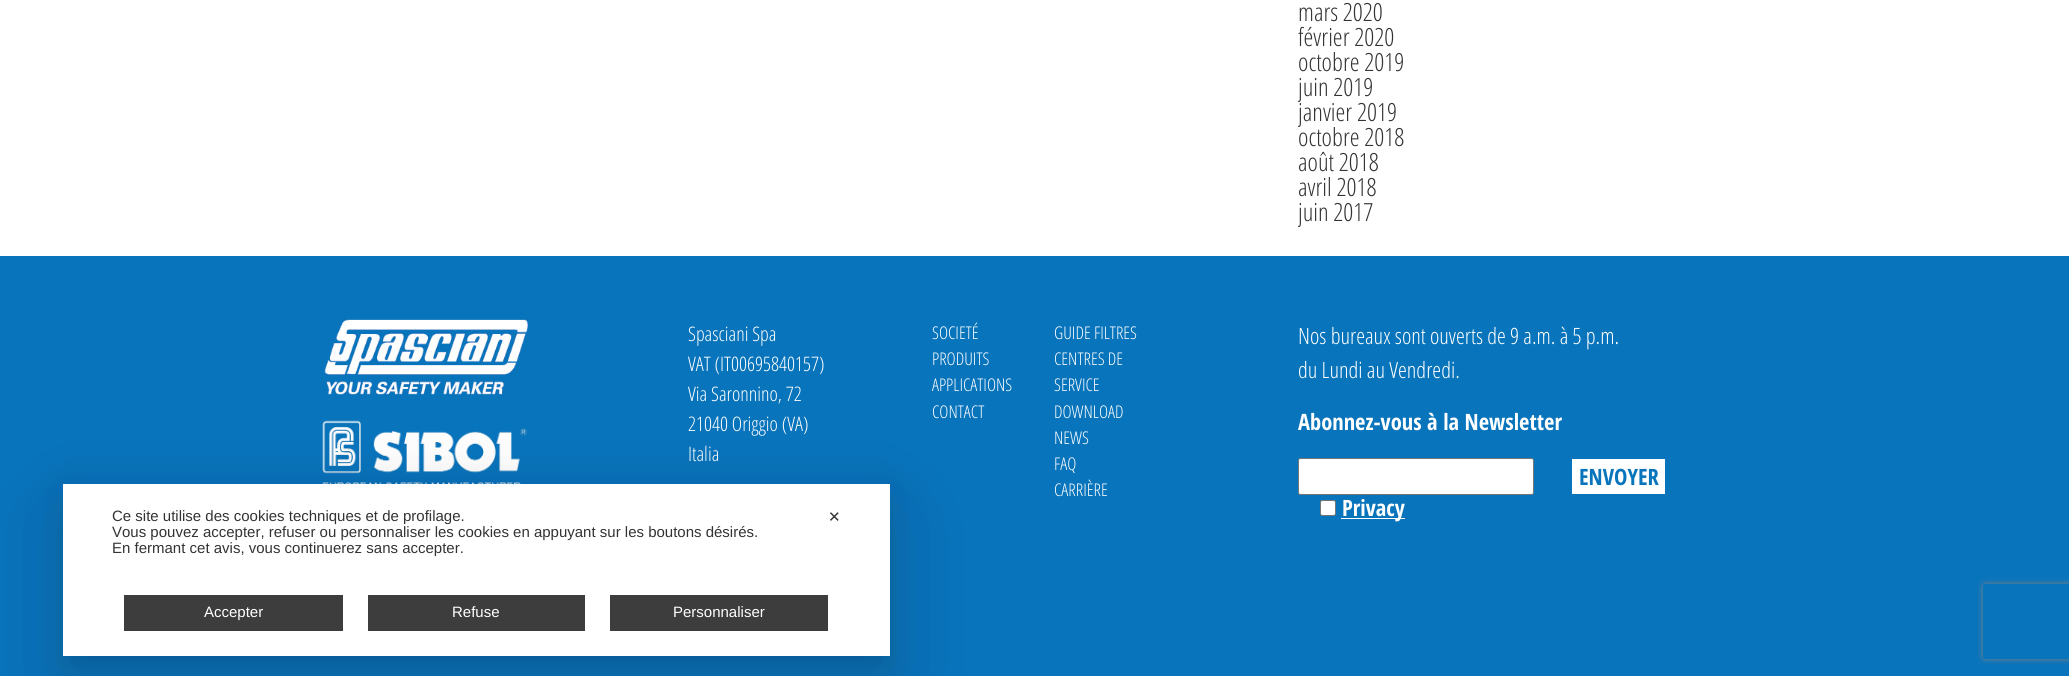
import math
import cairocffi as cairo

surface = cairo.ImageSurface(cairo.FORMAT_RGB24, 2069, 676)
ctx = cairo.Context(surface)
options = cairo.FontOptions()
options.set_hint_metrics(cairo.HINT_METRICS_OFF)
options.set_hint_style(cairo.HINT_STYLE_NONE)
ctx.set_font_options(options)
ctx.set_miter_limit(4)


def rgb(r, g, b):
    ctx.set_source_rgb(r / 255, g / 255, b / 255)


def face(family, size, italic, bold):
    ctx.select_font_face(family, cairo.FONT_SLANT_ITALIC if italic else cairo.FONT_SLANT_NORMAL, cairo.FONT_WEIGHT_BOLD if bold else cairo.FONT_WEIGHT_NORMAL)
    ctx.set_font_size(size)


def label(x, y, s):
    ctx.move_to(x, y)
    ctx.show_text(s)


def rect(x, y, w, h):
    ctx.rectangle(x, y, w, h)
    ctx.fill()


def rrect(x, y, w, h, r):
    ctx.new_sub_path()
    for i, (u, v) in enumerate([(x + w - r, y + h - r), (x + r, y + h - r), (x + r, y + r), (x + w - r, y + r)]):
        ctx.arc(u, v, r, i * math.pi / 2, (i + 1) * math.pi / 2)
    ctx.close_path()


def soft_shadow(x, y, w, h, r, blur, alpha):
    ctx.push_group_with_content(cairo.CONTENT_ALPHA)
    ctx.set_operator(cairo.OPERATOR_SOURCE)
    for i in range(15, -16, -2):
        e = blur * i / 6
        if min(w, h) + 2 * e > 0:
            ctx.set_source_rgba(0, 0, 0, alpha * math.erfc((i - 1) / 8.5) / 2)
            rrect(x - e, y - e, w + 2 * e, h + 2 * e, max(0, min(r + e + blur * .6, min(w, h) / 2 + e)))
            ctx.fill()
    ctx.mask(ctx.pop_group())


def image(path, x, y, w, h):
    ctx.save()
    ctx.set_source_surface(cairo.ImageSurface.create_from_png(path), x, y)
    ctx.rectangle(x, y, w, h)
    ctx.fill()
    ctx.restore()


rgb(255, 255, 255)
ctx.paint()
face('Open Sans Condensed Light', 25, 0, 0)
rgb(51, 51, 51)
label(1298, 21, 'mars 2020')
label(1298, 46, 'février 2020')
label(1298, 71, 'octobre 2019')
label(1298, 96, 'juin 2019')
label(1298, 121, 'janvier 2019')
label(1298, 146, 'octobre 2018')
label(1298, 171, 'août 2018')
label(1298, 196, 'avril 2018')
label(1298, 221, 'juin 2017')
rgb(8, 116, 188)
rect(0, 256, 2069, 420)
image('image0.png', 322, 318, 207, 78)
image('image1.png', 322, 420, 205, 64)
face('Open Sans Condensed Light', 20, 0, 0)
rgb(255, 255, 255)
label(688, 341, 'Spasciani Spa')
label(688, 371, 'VAT (IT00695840157)')
label(688, 401, 'Via Saronnino, 72')
label(688, 431, '21040 Origgio (VA)')
label(688, 461, 'Italia')
face('Open Sans Condensed Light', 17.5, 0, 0)
label(932, 339, 'SOCIETÉ')
label(932, 365, 'PRODUITS')
label(932, 391, 'APPLICATIONS')
label(932, 418, 'CONTACT')
label(1054, 339, 'GUIDE FILTRES')
label(1054, 365, 'CENTRES DE')
label(1054, 391, 'SERVICE')
label(1054, 418, 'DOWNLOAD')
label(1054, 444, 'NEWS')
label(1054, 470, 'FAQ')
label(1054, 496, 'CARRIÈRE')
face('Open Sans Condensed Light', 22.5, 0, 0)
label(1298, 344, 'Nos bureaux sont ouverts de 9 a.m. à 5 p.m.')
label(1298, 378, 'du Lundi au Vendredi.')
face('Open Sans Condensed', 22.5, 0, 1)
label(1298, 430, 'Abonnez-vous à la Newsletter')
rect(1572, 459, 93, 35)
rgb(8, 116, 188)
label(1579, 485, 'ENVOYER')
rgb(255, 255, 255)
rrect(1298.5, 458.5, 235, 36, 2)
ctx.fill_preserve()
rgb(118, 118, 118)
ctx.set_line_width(1)
ctx.stroke()
rgb(255, 255, 255)
rrect(1320.5, 500.5, 15, 15, 2)
ctx.fill_preserve()
rgb(118, 118, 118)
ctx.stroke()
rgb(255, 255, 255)
rect(1341, 518, 64, 1)
label(1342, 516, 'Privacy')
rgb(17, 17, 26)
soft_shadow(63, 514, 827, 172, 0, 50, 0.1)
soft_shadow(63, 504, 827, 172, 0, 35, 0.1)
soft_shadow(63, 494, 827, 172, 0, 15, 0.1)
rgb(255, 255, 255)
rect(63, 484, 827, 172)
face('Liberation Sans', 15, 0, 0)
rgb(51, 51, 51)
label(112, 521, 'Ce site utilise des cookies techniques et de profilage.')
label(112, 537, 'Vous pouvez accepter, refuser ou personnaliser les cookies en appuyant sur les boutons désirés.')
label(112, 553, 'En fermant cet avis, vous continuerez sans accepter.')
rgb(61, 61, 61)
rect(124, 595, 219, 36)
rgb(255, 255, 255)
label(204, 617, 'Accepter')
rgb(61, 61, 61)
rect(368, 595, 217, 36)
rgb(255, 255, 255)
label(452, 617, 'Refuse')
rgb(61, 61, 61)
rect(610, 595, 218, 36)
rgb(255, 255, 255)
label(673, 617, 'Personnaliser')
face('DejaVu Sans', 15, 0, 0)
rgb(51, 51, 51)
label(828, 522, '✕')
ctx.save()
ctx.set_fill_rule(cairo.FILL_RULE_EVEN_ODD)
ctx.new_path()
ctx.move_to(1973, 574)
ctx.line_to(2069, 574)
ctx.line_to(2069, 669)
ctx.line_to(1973, 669)
ctx.close_path()
ctx.move_to(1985.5, 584)
ctx.line_to(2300.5, 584)
ctx.curve_to(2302, 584, 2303, 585, 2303, 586.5)
ctx.line_to(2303, 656.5)
ctx.curve_to(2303, 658, 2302, 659, 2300.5, 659)
ctx.line_to(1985.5, 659)
ctx.curve_to(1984, 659, 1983, 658, 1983, 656.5)
ctx.line_to(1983, 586.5)
ctx.curve_to(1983, 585, 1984, 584, 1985.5, 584)
ctx.close_path()
ctx.clip()
rgb(128, 128, 128)
soft_shadow(1983, 584, 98, 75, 2.5, 3, 1)
ctx.restore()
surface.write_to_png('render.png')
